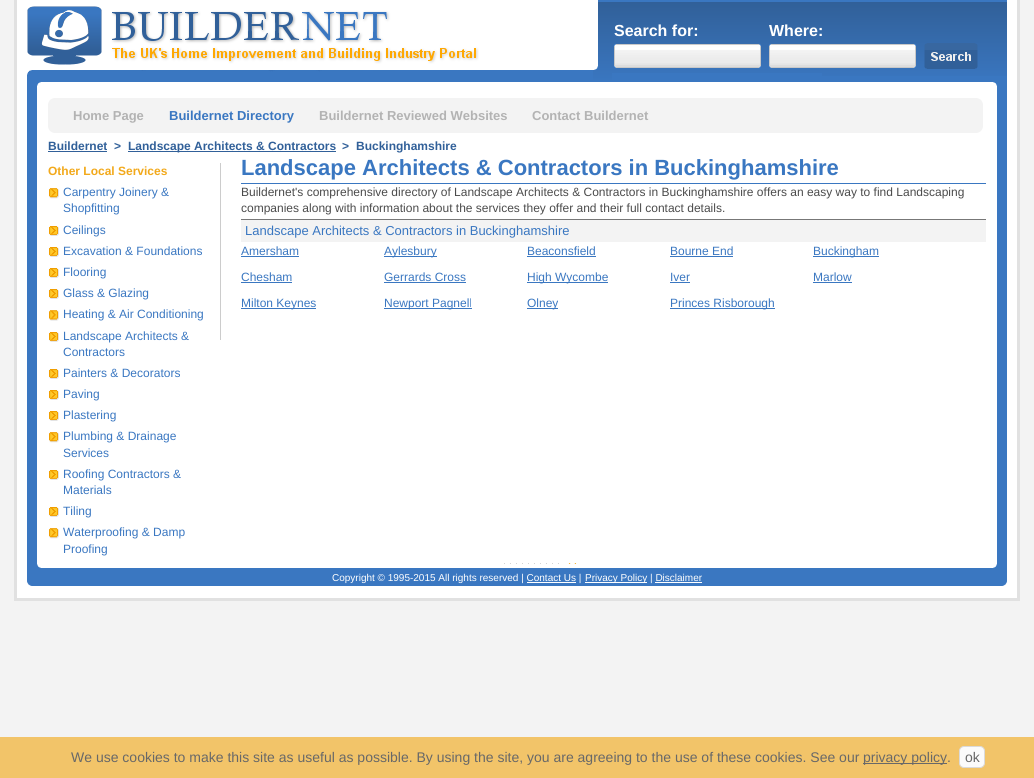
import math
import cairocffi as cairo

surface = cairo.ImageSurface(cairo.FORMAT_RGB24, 1034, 778)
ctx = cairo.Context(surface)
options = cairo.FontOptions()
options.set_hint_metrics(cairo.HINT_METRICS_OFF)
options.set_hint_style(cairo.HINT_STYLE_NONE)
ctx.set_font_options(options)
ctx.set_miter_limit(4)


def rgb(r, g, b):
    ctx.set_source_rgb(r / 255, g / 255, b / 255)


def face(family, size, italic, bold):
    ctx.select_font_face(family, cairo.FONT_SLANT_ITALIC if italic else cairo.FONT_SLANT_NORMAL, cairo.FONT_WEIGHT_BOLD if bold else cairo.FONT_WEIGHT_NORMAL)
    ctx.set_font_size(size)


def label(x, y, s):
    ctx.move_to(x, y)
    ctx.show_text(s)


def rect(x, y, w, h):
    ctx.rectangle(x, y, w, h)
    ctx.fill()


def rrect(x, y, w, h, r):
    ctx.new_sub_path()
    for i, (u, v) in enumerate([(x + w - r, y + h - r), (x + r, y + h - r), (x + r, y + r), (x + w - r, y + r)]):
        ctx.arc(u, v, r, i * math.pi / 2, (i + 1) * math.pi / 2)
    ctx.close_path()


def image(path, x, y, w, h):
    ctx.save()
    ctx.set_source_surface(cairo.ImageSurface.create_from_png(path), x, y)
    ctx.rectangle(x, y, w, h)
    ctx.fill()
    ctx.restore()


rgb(243, 243, 243)
ctx.paint()
rgb(255, 255, 255)
rect(17, 0, 1000, 598)
rgb(225, 225, 225)
rect(1017, 0, 3, 601)
rect(14, 598, 1006, 3)
rect(14, 0, 3, 601)
image('image0.png', 27, 6, 452, 59)
image('image1.png', 594, 0, 413, 70)
face('Liberation Sans', 16, 0, 1)
rgb(255, 255, 255)
label(614, 36, 'Search for:')
image('image2.png', 614, 44, 147, 24)
label(769, 36, 'Where:')
image('image2.png', 769, 44, 147, 24)
image('image3.png', 924, 43, 54, 26)
image('image4.png', 27, 70, 980, 17)
rgb(58, 119, 193)
rect(27, 87, 980, 476)
rgb(255, 255, 255)
rect(37, 87, 960, 476)
image('image5.png', 48, 98, 935, 35)
face('Liberation Sans', 13, 0, 1)
rgb(179, 179, 179)
label(73, 120, 'Home Page')
rgb(58, 119, 193)
label(169, 120, 'Buildernet Directory')
rgb(179, 179, 179)
label(319, 120, 'Buildernet Reviewed Websites')
label(532, 120, 'Contact Buildernet')
face('Liberation Sans', 12, 0, 1)
rgb(49, 96, 153)
label(48, 150, 'Buildernet')
rect(48, 151, 59, 1)
label(114, 150, '>')
rect(128, 151, 208, 1)
label(128, 150, 'Landscape Architects & Contractors')
label(342, 150, '>')
label(356, 150, 'Buckinghamshire')
rgb(242, 169, 27)
label(48, 175, 'Other Local Services')
image('image6.png', 49, 188, 10, 11)
face('Liberation Sans', 12, 0, 0)
rgb(58, 119, 193)
label(63, 196, 'Carpentry Joinery &')
label(63, 212, 'Shopfitting')
image('image7.png', 49, 226, 10, 10)
label(63, 234, 'Ceilings')
image('image7.png', 49, 247, 10, 10)
label(63, 255, 'Excavation & Foundations')
image('image7.png', 49, 268, 10, 10)
label(63, 276, 'Flooring')
image('image7.png', 49, 289, 10, 10)
label(63, 297, 'Glass & Glazing')
image('image8.png', 49, 310, 10, 11)
label(63, 318, 'Heating & Air Conditioning')
image('image9.png', 49, 332, 10, 10)
label(63, 340, 'Landscape Architects &')
label(63, 356, 'Contractors')
image('image7.png', 49, 369, 10, 10)
label(63, 377, 'Painters & Decorators')
image('image7.png', 49, 390, 10, 10)
label(63, 398, 'Paving')
image('image7.png', 49, 411, 10, 10)
label(63, 419, 'Plastering')
image('image6.png', 49, 432, 10, 11)
label(63, 440, 'Plumbing & Drainage')
label(63, 457, 'Services')
image('image9.png', 49, 470, 10, 10)
label(63, 478, 'Roofing Contractors &')
label(63, 494, 'Materials')
image('image7.png', 49, 507, 10, 10)
label(63, 515, 'Tiling')
image('image6.png', 49, 528, 10, 11)
label(63, 536, 'Waterproofing & Damp')
label(63, 553, 'Proofing')
rgb(204, 204, 204)
rect(220, 163, 1, 177)
rgb(58, 119, 193)
rect(241, 183, 745, 1)
face('Liberation Sans', 22, 0, 1)
label(241, 175, 'Landscape Architects & Contractors in Buckinghamshire')
face('Liberation Sans', 12, 0, 0)
rgb(75, 75, 75)
label(241, 196, 'Buildernet\'s comprehensive directory of Landscape Architects & Contractors in Buckinghamshire offers an easy way to find Landscaping')
label(241, 212, 'companies along with information about the services they offer and their full contact details.')
rgb(243, 243, 243)
rect(241, 220, 745, 22)
rgb(119, 119, 119)
rect(241, 219, 745, 1)
face('Liberation Sans', 13, 0, 0)
rgb(58, 119, 193)
label(245, 235, 'Landscape Architects & Contractors in Buckinghamshire')
face('Liberation Sans', 12, 0, 0)
label(241, 255, 'Amersham')
rect(241, 256, 58, 1)
rect(384, 256, 53, 1)
label(384, 255, 'Aylesbury')
label(527, 255, 'Beaconsfield')
rect(527, 256, 69, 1)
label(670, 255, 'Bourne End')
rect(670, 256, 63, 1)
rect(813, 256, 66, 1)
label(813, 255, 'Buckingham')
label(241, 281, 'Chesham')
rect(241, 282, 51, 1)
label(384, 281, 'Gerrards Cross')
rect(384, 282, 82, 1)
rect(527, 282, 81, 1)
label(527, 281, 'High Wycombe')
label(670, 281, 'Iver')
rect(670, 282, 20, 1)
label(813, 281, 'Marlow')
rect(813, 282, 39, 1)
rect(241, 308, 75, 1)
label(241, 307, 'Milton Keynes')
rect(384, 308, 88, 1)
label(384, 307, 'Newport Pagnell')
rect(527, 308, 31, 1)
label(527, 307, 'Olney')
rect(670, 308, 105, 1)
label(670, 307, 'Princes Risborough')
image('image10.png', 27, 563, 980, 25)
face('Liberation Sans', 10, 0, 0)
rgb(255, 255, 255)
label(332, 581, 'Copyright © 1995-2015 All rights reserved | Contact Us |')
rect(585, 582, 62, 1)
label(585, 581, 'Privacy Policy | Disclaimer')
rect(527, 582, 49, 1)
rect(655, 582, 47, 1)
rgb(242, 196, 105)
rect(0, 737, 1034, 41)
face('Liberation Sans', 14, 0, 0)
rgb(104, 104, 104)
label(71, 762, 'We use cookies to make this site as useful as possible. By using the site, you are agreeing to the use of these cookies. See our')
rect(863, 763, 84, 1)
label(863, 762, 'privacy policy.')
rgb(251, 251, 251)
rrect(959.5, 746.5, 25, 21, 4.5)
ctx.fill_preserve()
rgb(218, 218, 218)
ctx.set_line_width(1)
ctx.stroke()
rgb(104, 104, 104)
label(965, 762, 'ok')
surface.write_to_png('render.png')
